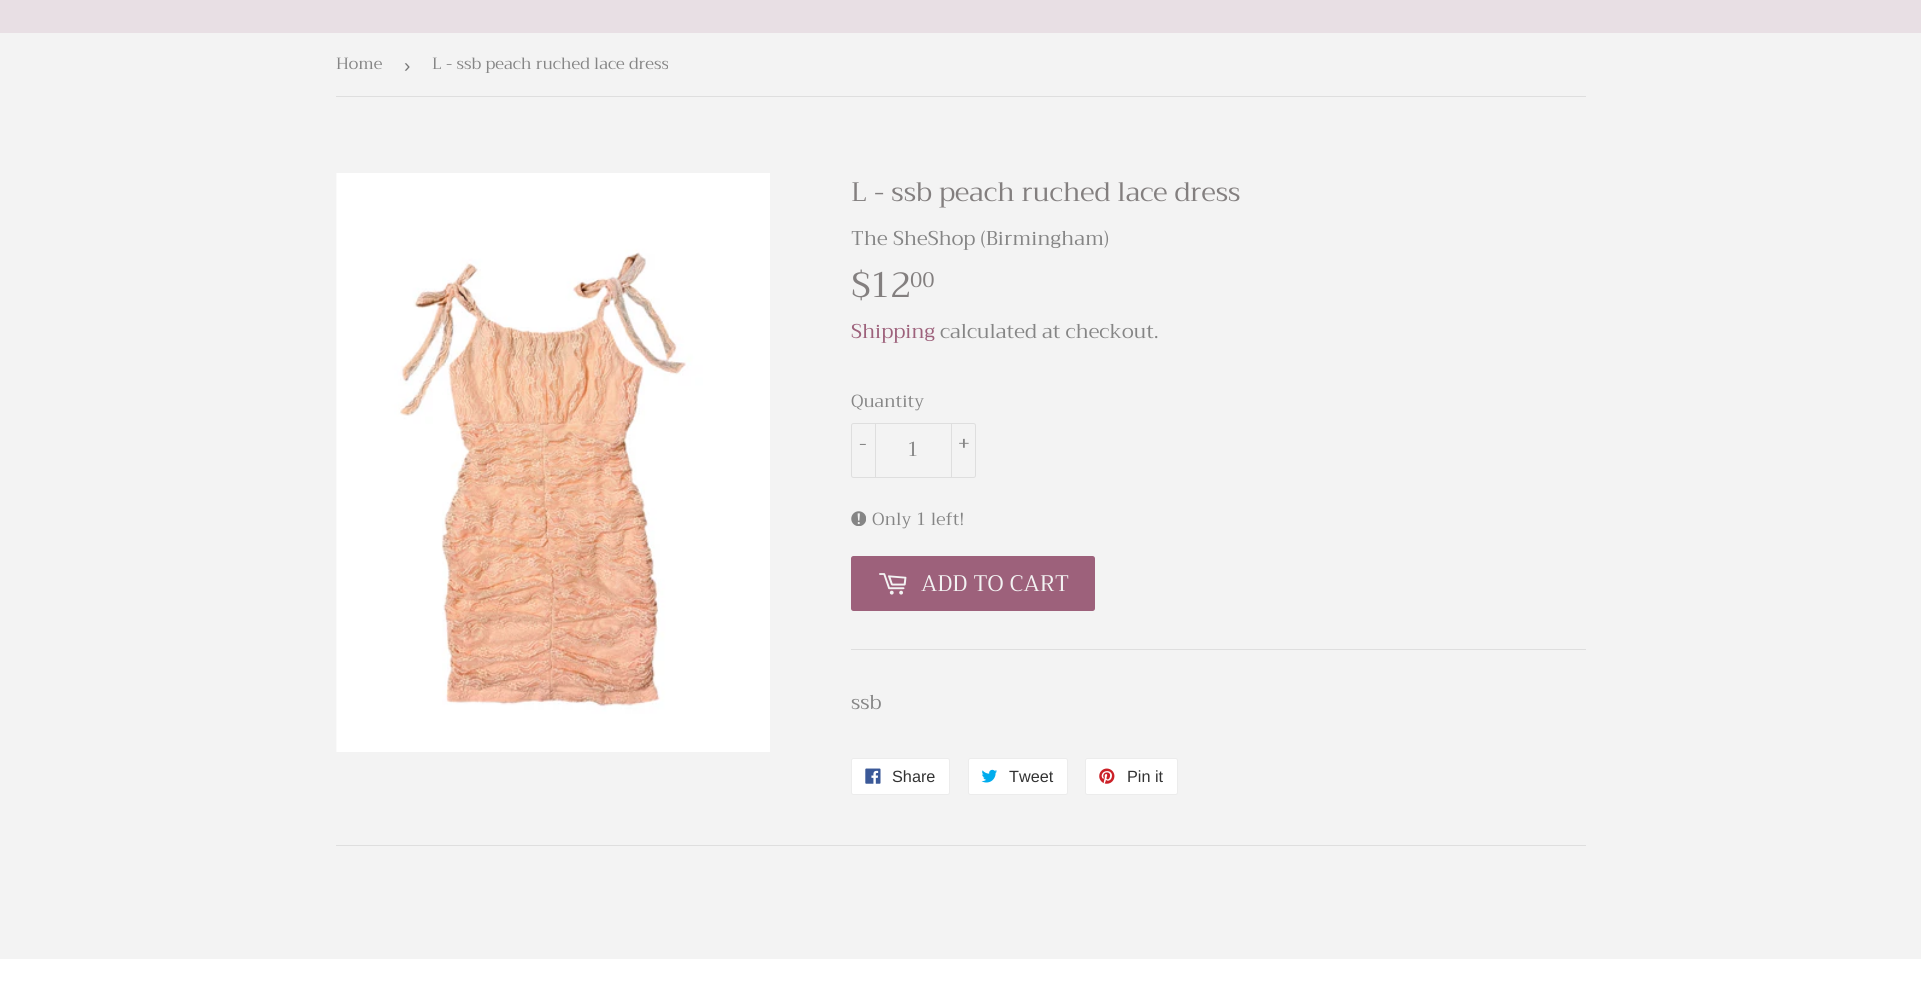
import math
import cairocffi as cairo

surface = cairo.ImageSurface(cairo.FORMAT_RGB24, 1921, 993)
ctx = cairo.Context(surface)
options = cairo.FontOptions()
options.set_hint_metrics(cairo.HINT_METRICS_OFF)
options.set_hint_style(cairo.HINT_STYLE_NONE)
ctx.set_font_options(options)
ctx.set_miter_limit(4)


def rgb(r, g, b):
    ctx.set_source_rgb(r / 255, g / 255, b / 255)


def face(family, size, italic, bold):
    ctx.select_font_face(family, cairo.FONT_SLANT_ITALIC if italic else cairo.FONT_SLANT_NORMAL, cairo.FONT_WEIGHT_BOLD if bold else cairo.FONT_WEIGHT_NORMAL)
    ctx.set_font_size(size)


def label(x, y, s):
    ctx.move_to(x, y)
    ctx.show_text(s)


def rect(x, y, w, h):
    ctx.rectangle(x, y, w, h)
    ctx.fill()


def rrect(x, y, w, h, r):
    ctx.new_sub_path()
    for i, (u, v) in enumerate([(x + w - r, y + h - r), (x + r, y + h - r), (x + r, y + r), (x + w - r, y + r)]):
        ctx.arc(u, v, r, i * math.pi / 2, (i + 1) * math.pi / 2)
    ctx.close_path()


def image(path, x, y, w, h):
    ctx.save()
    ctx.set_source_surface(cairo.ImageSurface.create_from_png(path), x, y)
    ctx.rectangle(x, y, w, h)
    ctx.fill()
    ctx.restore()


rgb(243, 243, 243)
ctx.paint()
rgb(232, 223, 228)
rect(0, 0, 1921, 33)
rgb(222, 222, 222)
rect(336, 96, 1250, 1)
face('Trirong', 16.25, 0, 0)
rgb(133, 133, 133)
label(336, 69, 'Home')
face('Liberation Sans', 19, 0, 0)
rgb(118, 118, 118)
label(404, 72, '›')
face('Trirong', 16.25, 0, 0)
rgb(133, 133, 133)
label(432, 69, 'L - ssb peach ruched lace dress')
image('image0.png', 336, 173, 434, 579)
face('Trirong', 26.7, 0, 0)
rgb(131, 127, 127)
label(851, 201, 'L - ssb peach ruched lace dress')
face('Trirong', 20, 0, 0)
rgb(133, 133, 133)
label(851, 245, 'The SheShop (Birmingham)')
face('Trirong', 35, 0, 0)
rgb(131, 127, 127)
label(851, 297, '$12')
face('Trirong', 21, 0, 0)
label(910, 287, '00')
face('Trirong', 20, 0, 0)
rgb(157, 97, 123)
label(851, 338, 'Shipping')
rgb(133, 133, 133)
label(940, 338, 'calculated at checkout.')
face('Trirong', 17.5, 0, 0)
label(851, 407, 'Quantity')
rrect(851.5, 423.5, 124, 54, 2)
rgb(222, 222, 222)
ctx.set_line_width(1)
ctx.stroke()
rect(875, 423, 1, 55)
face('Trirong', 20, 0, 0)
rgb(133, 133, 133)
label(859, 450, '-')
label(907, 456, '1')
rgb(222, 222, 222)
rect(951, 423, 1, 55)
rgb(133, 133, 133)
label(958, 450, '+')
image('image1.png', 851, 511, 15, 15)
face('Trirong', 17.5, 0, 0)
label(872, 525, 'Only 1 left!')
rgb(157, 97, 123)
rrect(851, 556, 244, 55, 2.5)
ctx.fill()
image('image2.png', 879, 573, 28, 22)
face('Trirong', 22.5, 0, 0)
rgb(243, 243, 243)
label(921, 591, 'ADD TO CART')
rgb(222, 222, 222)
rect(851, 649, 735, 1)
face('Trirong', 20, 0, 0)
rgb(133, 133, 133)
label(851, 709, 'ssb')
rgb(255, 255, 255)
rrect(851.5, 758.5, 98, 36, 2)
ctx.fill_preserve()
rgb(236, 236, 236)
ctx.stroke()
image('image3.png', 865, 768, 16, 16)
face('Liberation Sans', 16.25, 0, 0)
rgb(51, 51, 51)
label(892, 782, 'Share')
rgb(255, 255, 255)
rrect(968.5, 758.5, 99, 36, 2)
ctx.fill_preserve()
rgb(236, 236, 236)
ctx.stroke()
image('image4.png', 981, 769, 16, 14)
rgb(51, 51, 51)
label(1009, 782, 'Tweet')
rgb(255, 255, 255)
rrect(1085.5, 758.5, 92, 36, 2)
ctx.fill_preserve()
rgb(236, 236, 236)
ctx.stroke()
image('image5.png', 1099, 768, 16, 16)
rgb(51, 51, 51)
label(1127, 782, 'Pin it')
rgb(222, 222, 222)
rect(336, 845, 1250, 1)
rgb(255, 255, 255)
rect(0, 959, 1921, 34)
surface.write_to_png('render.png')
